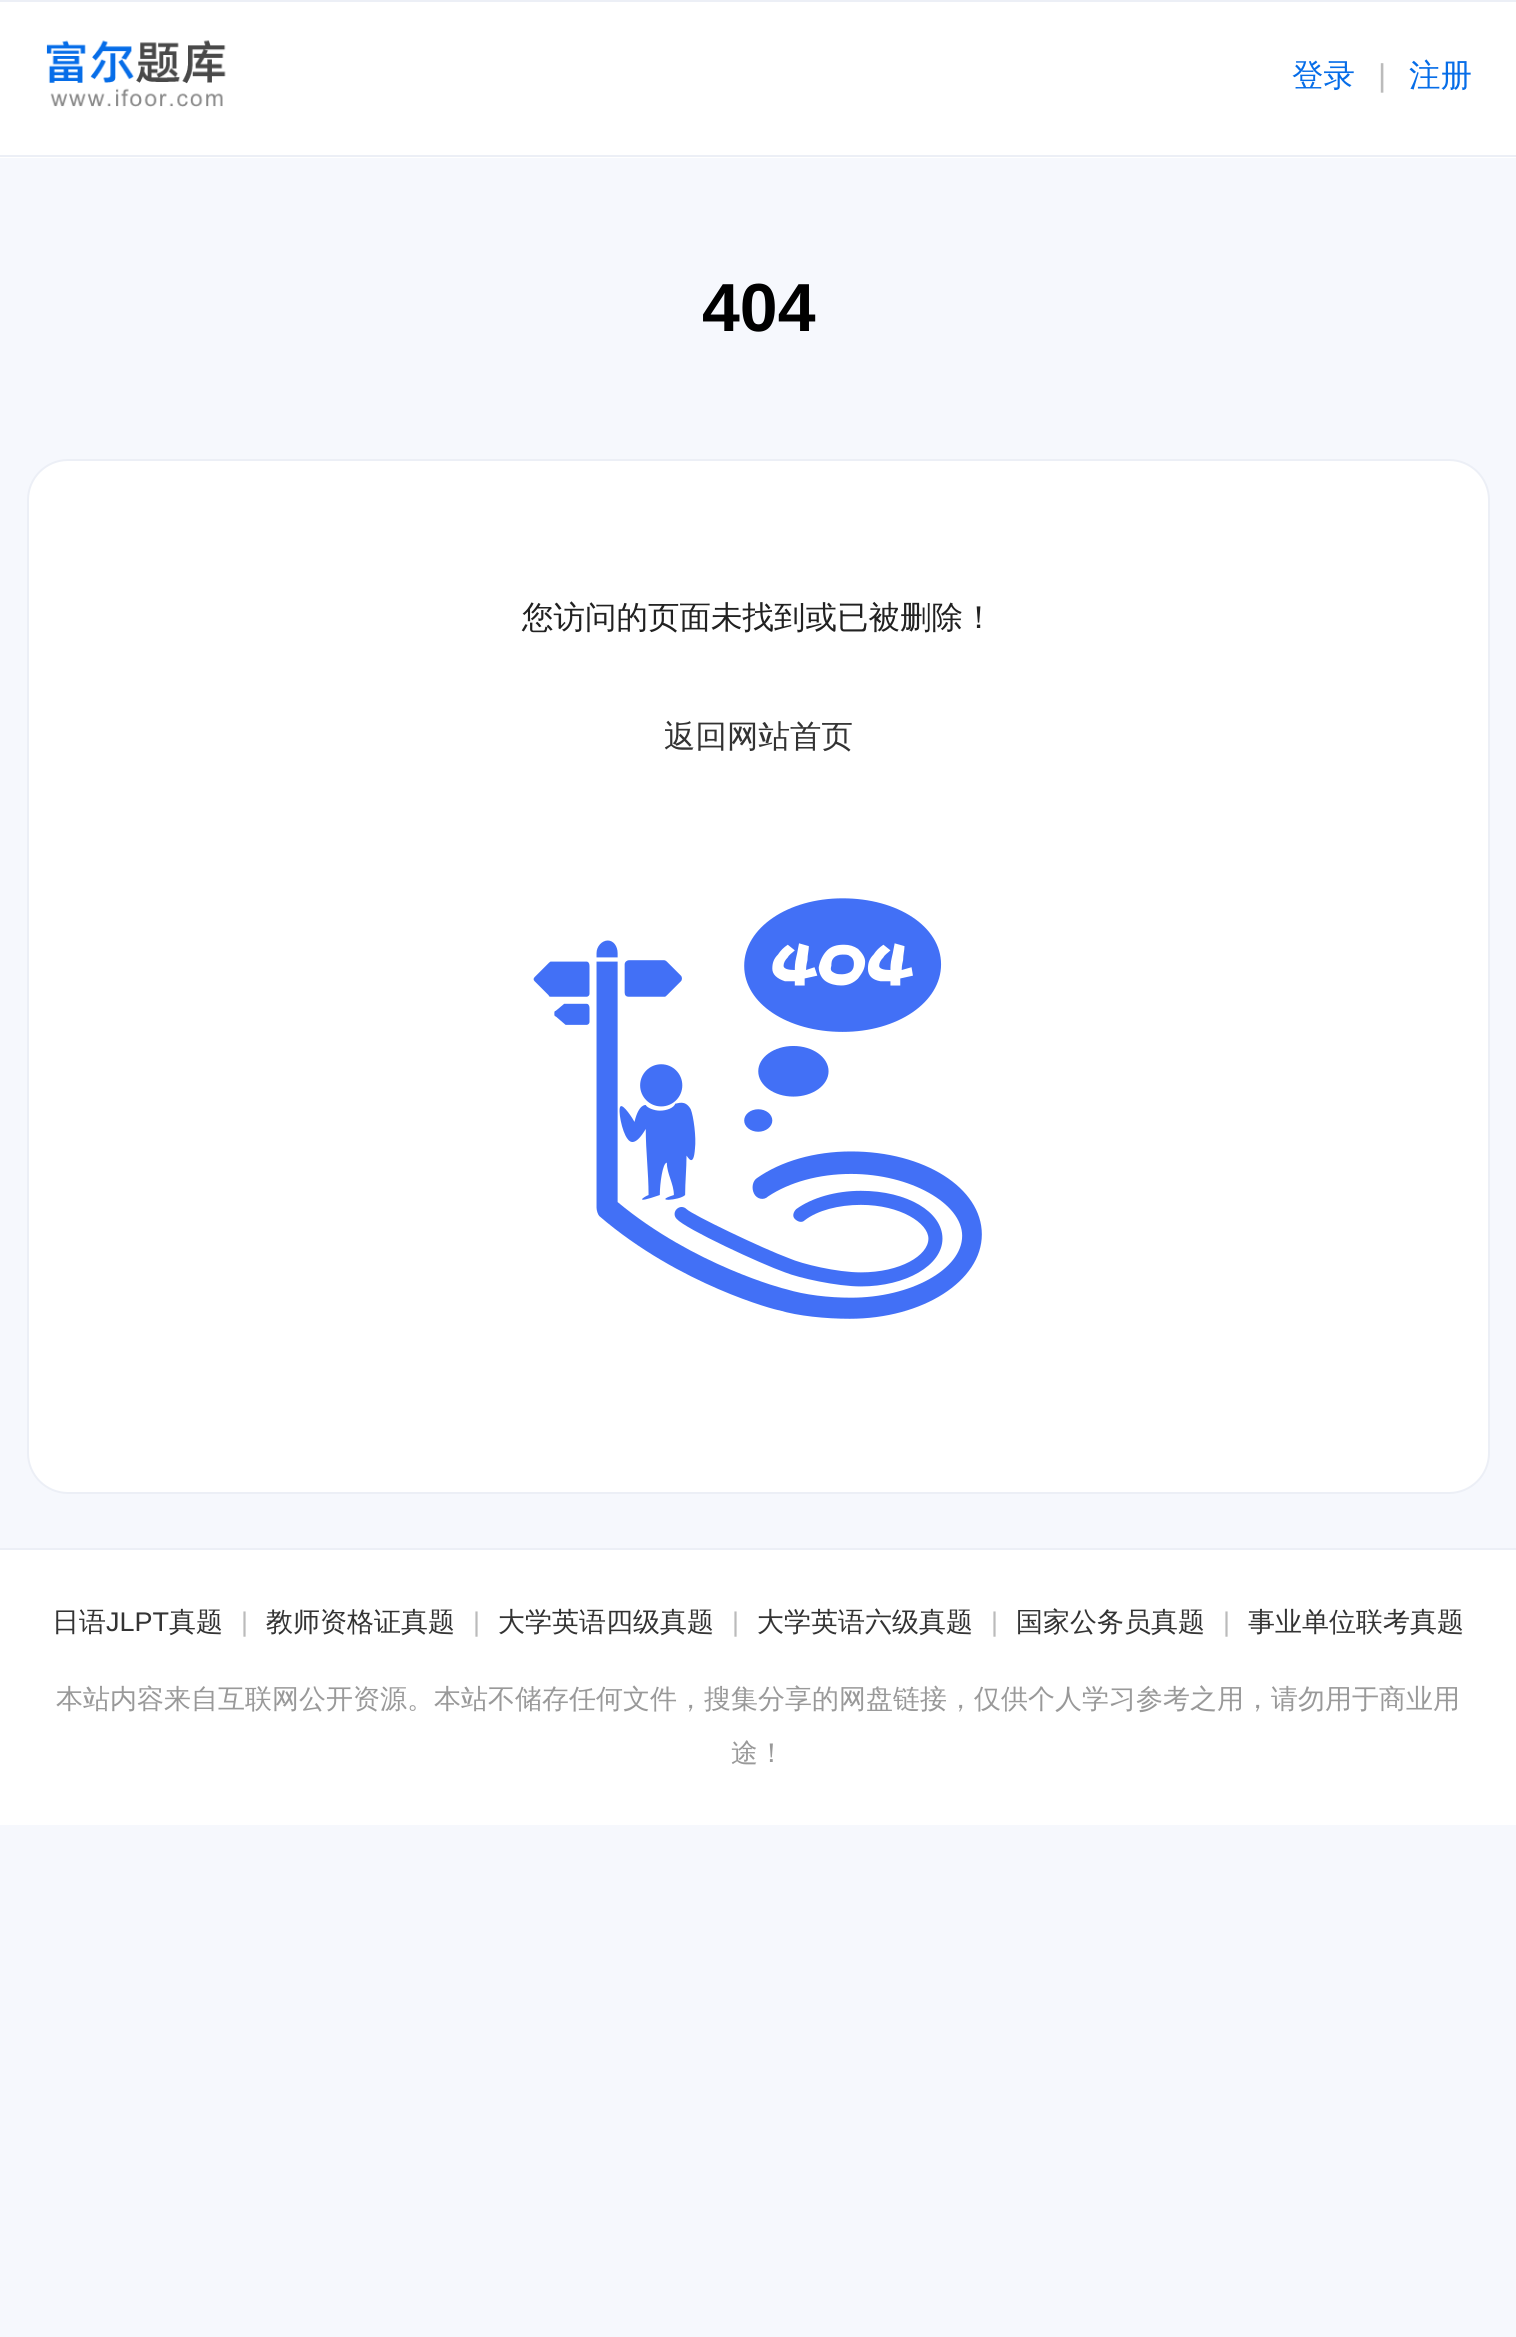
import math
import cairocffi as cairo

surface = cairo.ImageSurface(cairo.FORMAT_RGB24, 1516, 2337)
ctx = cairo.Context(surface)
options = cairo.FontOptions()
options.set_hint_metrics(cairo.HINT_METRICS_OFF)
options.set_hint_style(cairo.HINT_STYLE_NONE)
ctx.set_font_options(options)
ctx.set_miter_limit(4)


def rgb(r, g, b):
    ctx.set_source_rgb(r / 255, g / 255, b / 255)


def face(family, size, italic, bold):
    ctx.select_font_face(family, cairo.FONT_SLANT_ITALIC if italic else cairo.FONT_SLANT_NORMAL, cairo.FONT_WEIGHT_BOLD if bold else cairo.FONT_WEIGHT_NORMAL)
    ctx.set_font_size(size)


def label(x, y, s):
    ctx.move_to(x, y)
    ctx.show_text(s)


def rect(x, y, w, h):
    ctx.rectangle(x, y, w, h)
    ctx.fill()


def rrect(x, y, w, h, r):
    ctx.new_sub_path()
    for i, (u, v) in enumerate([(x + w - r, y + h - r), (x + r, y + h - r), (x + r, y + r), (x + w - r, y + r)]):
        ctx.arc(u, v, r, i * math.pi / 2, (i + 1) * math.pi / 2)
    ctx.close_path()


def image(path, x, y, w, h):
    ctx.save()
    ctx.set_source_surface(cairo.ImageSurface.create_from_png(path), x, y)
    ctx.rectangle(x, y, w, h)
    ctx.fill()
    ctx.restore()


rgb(246, 248, 253)
ctx.paint()
rgb(255, 255, 255)
rect(0, 2, 1516, 156)
rgb(236, 239, 246)
rect(0, 0, 1516, 2)
rect(0, 155, 1516, 2)
image('image0.png', 46, 40, 180, 67)
face('WenQuanYi Zen Hei Medium', 31.5, 0, 0)
rgb(6, 109, 232)
label(1292, 86, '登录')
face('Liberation Sans', 31.5, 0, 0)
rgb(187, 187, 187)
label(1378, 86, '|')
face('WenQuanYi Zen Hei Medium', 31.5, 0, 0)
rgb(6, 109, 232)
label(1409, 86, '注册')
face('Liberation Sans', 68, 0, 1)
rgb(0, 0, 0)
label(702, 331, '404')
rgb(255, 255, 255)
rrect(28, 460, 1461, 1033, 40)
ctx.fill_preserve()
rgb(236, 239, 246)
ctx.stroke()
face('WenQuanYi Zen Hei Medium', 31.5, 0, 0)
rgb(33, 33, 33)
label(522, 628, '您访问的页面未找到或已被删除！')
rgb(51, 51, 51)
label(664, 747, '返回网站首页')
image('image1.png', 533, 898, 449, 421)
rgb(255, 255, 255)
rect(0, 1550, 1516, 275)
rgb(236, 239, 246)
rect(0, 1548, 1516, 2)
face('WenQuanYi Zen Hei Medium', 27, 0, 0)
rgb(51, 51, 51)
label(52, 1631, '日语')
face('Liberation Sans', 27, 0, 0)
label(106, 1631, 'JLPT')
face('WenQuanYi Zen Hei Medium', 27, 0, 0)
label(169, 1631, '真题')
face('Liberation Sans', 27, 0, 0)
rgb(187, 187, 187)
label(241, 1631, '|')
face('WenQuanYi Zen Hei Medium', 27, 0, 0)
rgb(51, 51, 51)
label(266, 1631, '教师资格证真题')
face('Liberation Sans', 27, 0, 0)
rgb(187, 187, 187)
label(473, 1631, '|')
face('WenQuanYi Zen Hei Medium', 27, 0, 0)
rgb(51, 51, 51)
label(498, 1631, '大学英语四级真题')
face('Liberation Sans', 27, 0, 0)
rgb(187, 187, 187)
label(732, 1631, '|')
face('WenQuanYi Zen Hei Medium', 27, 0, 0)
rgb(51, 51, 51)
label(757, 1631, '大学英语六级真题')
face('Liberation Sans', 27, 0, 0)
rgb(187, 187, 187)
label(991, 1631, '|')
face('WenQuanYi Zen Hei Medium', 27, 0, 0)
rgb(51, 51, 51)
label(1016, 1631, '国家公务员真题')
face('Liberation Sans', 27, 0, 0)
rgb(187, 187, 187)
label(1223, 1631, '|')
face('WenQuanYi Zen Hei Medium', 27, 0, 0)
rgb(51, 51, 51)
label(1248, 1631, '事业单位联考真题')
rgb(153, 153, 153)
label(56, 1708, '本站内容来自互联网公开资源。本站不储存任何文件，搜集分享的网盘链接，仅供个人学习参考之用，请勿用于商业用')
label(731, 1762, '途！')
surface.write_to_png('render.png')
